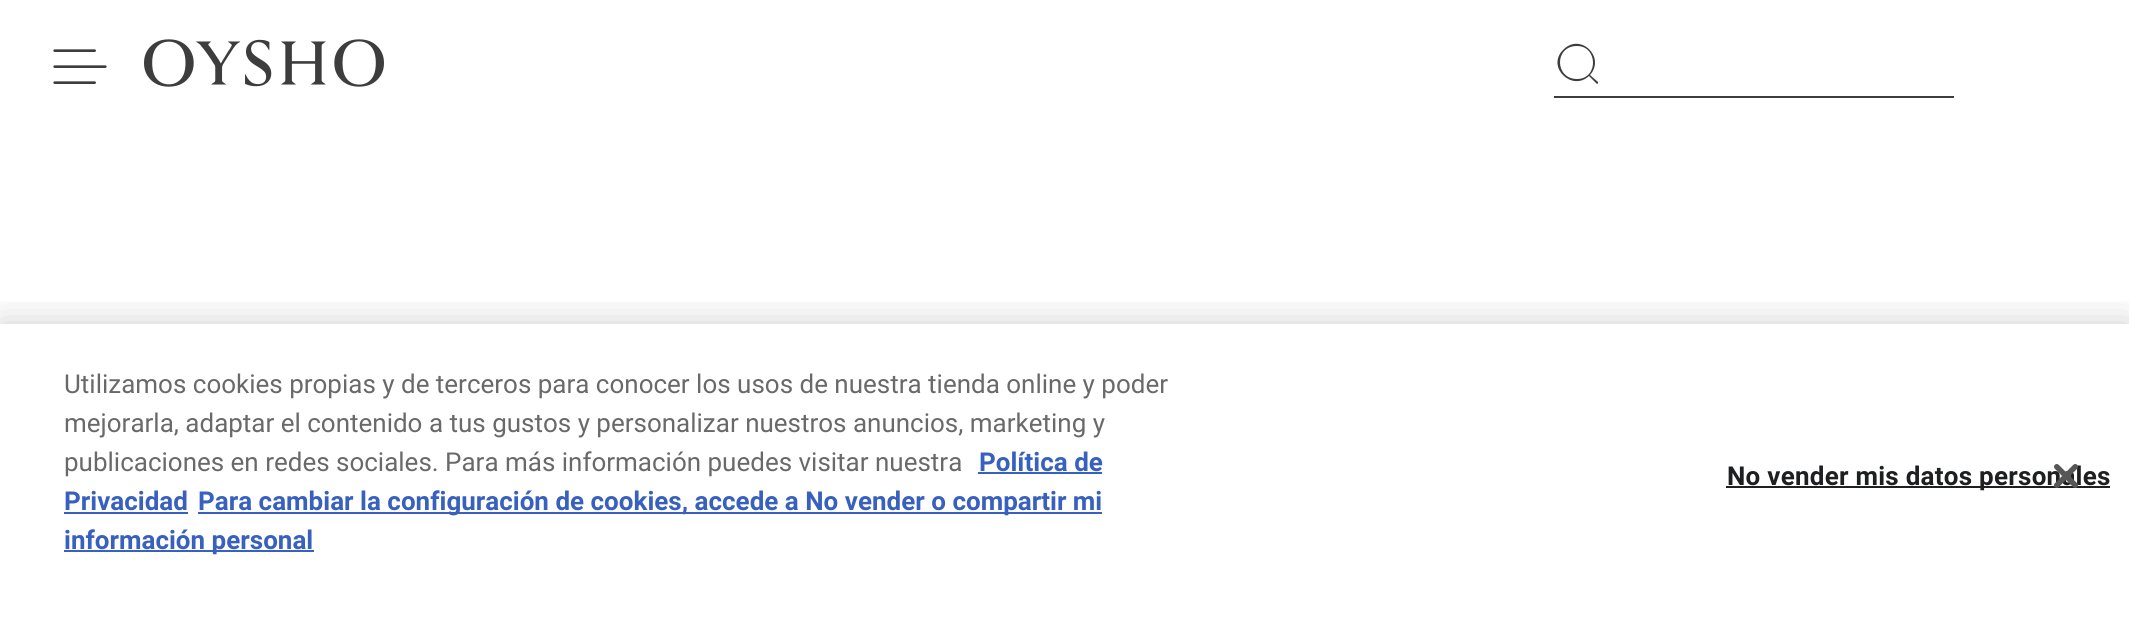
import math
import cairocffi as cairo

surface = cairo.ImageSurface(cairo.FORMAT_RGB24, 2129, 634)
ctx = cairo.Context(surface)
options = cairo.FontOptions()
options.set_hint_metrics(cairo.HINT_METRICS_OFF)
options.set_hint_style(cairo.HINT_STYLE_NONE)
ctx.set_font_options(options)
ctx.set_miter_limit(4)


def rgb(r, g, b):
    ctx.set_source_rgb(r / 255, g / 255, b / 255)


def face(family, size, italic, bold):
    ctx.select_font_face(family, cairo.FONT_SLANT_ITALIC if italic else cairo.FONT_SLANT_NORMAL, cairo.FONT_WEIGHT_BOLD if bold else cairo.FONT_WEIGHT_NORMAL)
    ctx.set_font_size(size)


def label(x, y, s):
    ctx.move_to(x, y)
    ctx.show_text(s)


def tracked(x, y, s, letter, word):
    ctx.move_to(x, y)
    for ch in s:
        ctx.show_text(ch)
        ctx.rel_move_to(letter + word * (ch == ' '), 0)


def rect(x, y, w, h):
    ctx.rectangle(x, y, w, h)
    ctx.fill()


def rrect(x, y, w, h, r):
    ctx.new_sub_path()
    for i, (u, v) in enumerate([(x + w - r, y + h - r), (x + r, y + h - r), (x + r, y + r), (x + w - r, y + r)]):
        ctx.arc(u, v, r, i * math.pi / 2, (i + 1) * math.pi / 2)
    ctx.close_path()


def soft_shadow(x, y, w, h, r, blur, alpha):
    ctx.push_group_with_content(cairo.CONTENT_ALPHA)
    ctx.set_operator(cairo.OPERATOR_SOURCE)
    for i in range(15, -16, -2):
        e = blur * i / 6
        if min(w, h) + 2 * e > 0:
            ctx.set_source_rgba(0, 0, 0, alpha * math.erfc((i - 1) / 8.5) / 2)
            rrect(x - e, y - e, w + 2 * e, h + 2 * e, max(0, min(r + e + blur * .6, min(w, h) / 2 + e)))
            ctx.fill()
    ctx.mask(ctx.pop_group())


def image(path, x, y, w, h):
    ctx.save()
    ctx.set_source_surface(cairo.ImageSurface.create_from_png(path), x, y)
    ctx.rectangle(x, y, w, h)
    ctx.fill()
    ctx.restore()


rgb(255, 255, 255)
ctx.paint()
image('image0.png', 53, 49, 54, 35)
image('image1.png', 144, 39, 240, 48)
rgb(61, 61, 61)
rect(1554, 96, 400, 2)
ctx.new_path()
ctx.move_to(1577, 79)
ctx.curve_to(1555, 79, 1554, 47, 1576, 46)
ctx.curve_to(1598, 45, 1599, 79, 1577, 79)
ctx.close_path()
ctx.move_to(1598, 82)
ctx.line_to(1590, 75)
ctx.curve_to(1606, 57, 1580, 32, 1563, 50)
ctx.curve_to(1546, 67, 1572, 92, 1589, 76)
ctx.line_to(1597, 84)
ctx.curve_to(1598, 84, 1598, 83, 1598, 82)
ctx.close_path()
ctx.fill()
ctx.save()
ctx.rectangle(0, 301, 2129, 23)
ctx.clip()
rgb(0, 0, 0)
soft_shadow(0, 324, 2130, 310, 0, 18, 0.2)
ctx.restore()
face('Roboto', 26, 0, 0)
rgb(105, 105, 105)
label(64, 393, 'Utilizamos cookies propias y de terceros para conocer los usos de nuestra tienda online y poder')
label(64, 432, 'mejorarla, adaptar el contenido a tus gustos y personalizar nuestros anuncios, marketing y')
label(64, 471, 'publicaciones en redes sociales. Para más información puedes visitar nuestra')
face('Roboto', 26, 0, 1)
rgb(56, 96, 190)
label(979, 471, 'Política de')
rect(978, 472, 124, 2)
label(64, 510, 'Privacidad')
rect(64, 512, 124, 2)
rect(198, 512, 904, 2)
label(198, 510, 'Para cambiar la configuración de cookies, accede a No vender o compartir mi')
rect(64, 550, 250, 2)
label(64, 549, 'información personal')
rgb(30, 31, 33)
rect(1726, 486, 384, 2)
tracked(1727, 485, 'No vender mis datos personales', 0.25, 0)
image('image2.png', 2054, 464, 24, 24)
surface.write_to_png('render.png')
